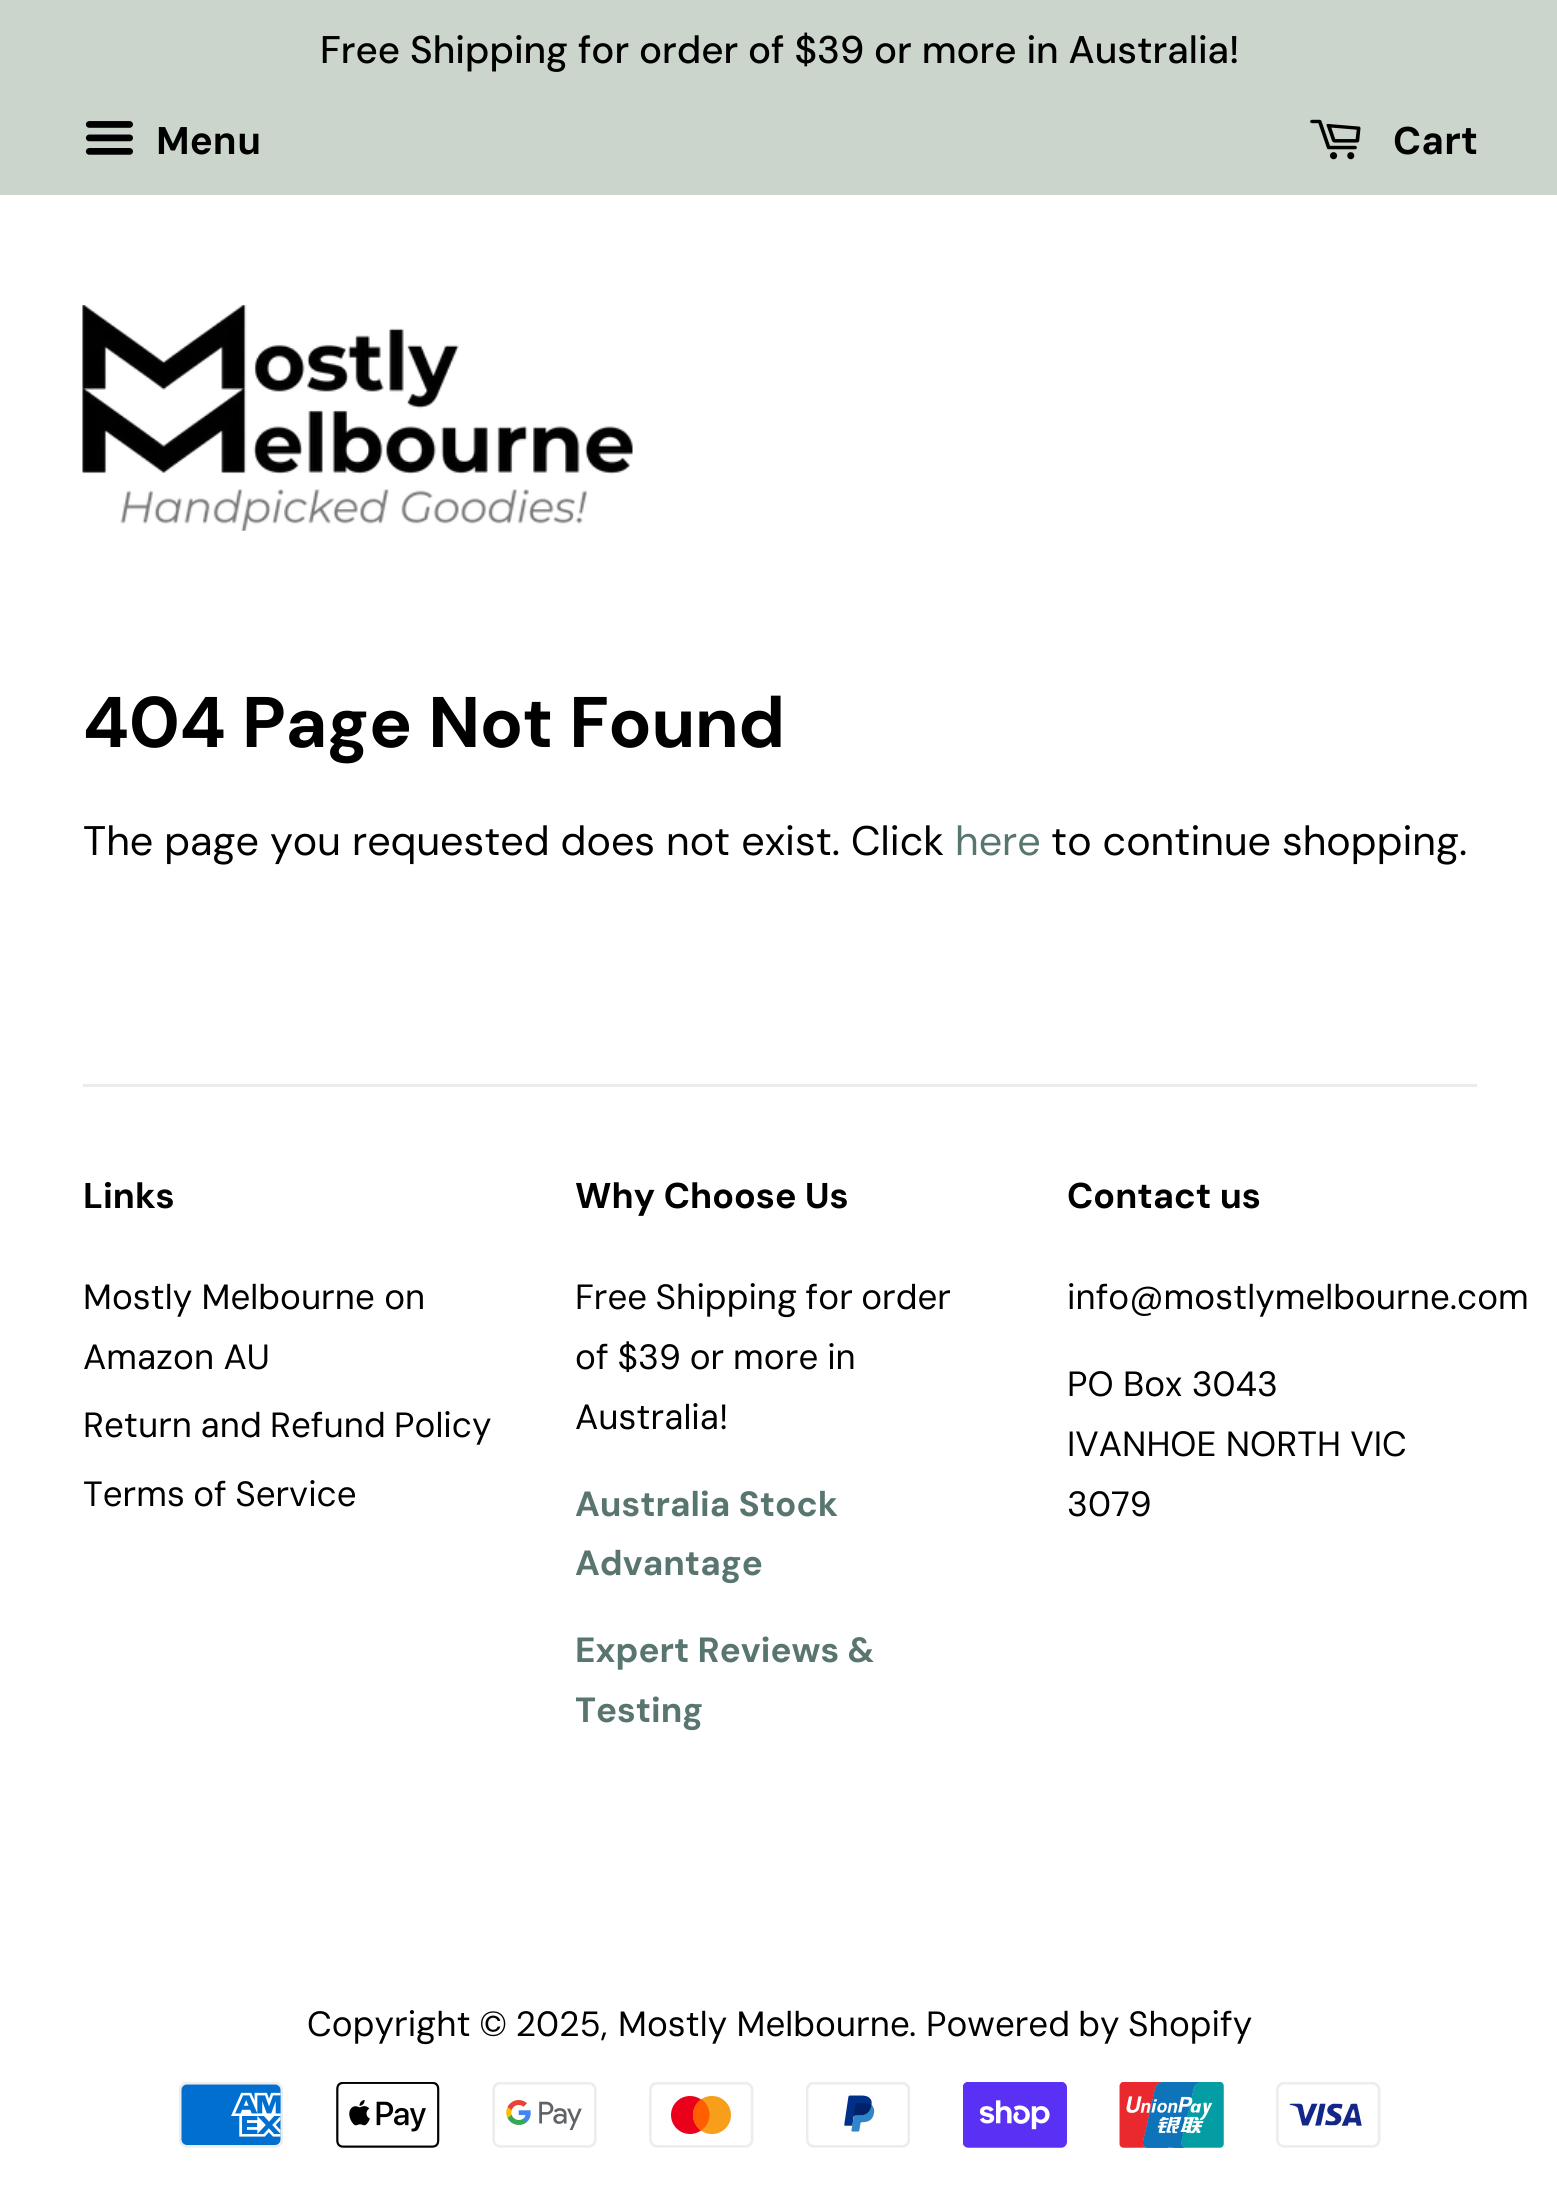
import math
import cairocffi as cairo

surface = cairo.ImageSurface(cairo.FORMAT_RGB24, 1557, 2190)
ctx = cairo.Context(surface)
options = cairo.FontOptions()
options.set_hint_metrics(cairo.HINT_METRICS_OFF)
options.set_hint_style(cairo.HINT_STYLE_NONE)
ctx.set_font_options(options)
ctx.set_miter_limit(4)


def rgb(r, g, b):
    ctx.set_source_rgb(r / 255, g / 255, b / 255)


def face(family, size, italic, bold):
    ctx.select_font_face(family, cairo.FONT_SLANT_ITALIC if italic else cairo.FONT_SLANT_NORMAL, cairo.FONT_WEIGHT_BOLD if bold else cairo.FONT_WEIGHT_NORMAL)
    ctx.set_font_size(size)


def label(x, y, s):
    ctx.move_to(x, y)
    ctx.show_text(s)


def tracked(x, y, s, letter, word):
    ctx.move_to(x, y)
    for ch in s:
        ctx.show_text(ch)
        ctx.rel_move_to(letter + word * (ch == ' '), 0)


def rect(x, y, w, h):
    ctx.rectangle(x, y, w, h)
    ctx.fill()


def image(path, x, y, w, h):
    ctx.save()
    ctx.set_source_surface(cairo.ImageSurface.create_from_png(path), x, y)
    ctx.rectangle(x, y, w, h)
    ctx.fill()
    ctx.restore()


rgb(255, 255, 255)
ctx.paint()
rgb(203, 213, 204)
rect(0, 0, 1557, 195)
face('DM Sans Medium', 38.5, 0, 0)
rgb(0, 0, 0)
label(320, 63, 'Free Shipping for order of $39 or more in Australia!')
image('image0.png', 85, 121, 48, 34)
face('DM Sans', 38.5, 0, 1)
label(156, 154, 'Menu')
image('image1.png', 1310, 119, 51, 41)
label(1393, 154, 'Cart')
image('image2.png', 82, 305, 551, 226)
face('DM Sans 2', 71.5, 0, 1)
label(83, 747, '404 Page Not Found')
face('DM Sans', 41.25, 0, 0)
label(83, 855, 'The page you requested does not exist. Click')
rgb(89, 117, 111)
label(955, 855, 'here')
rgb(0, 0, 0)
label(1051, 855, 'to continue shopping.')
rgb(235, 235, 235)
rect(83, 1084, 1394, 3)
face('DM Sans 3', 35.75, 0, 1)
rgb(0, 0, 0)
label(83, 1208, 'Links')
face('DM Sans 2', 35, 0, 0)
label(83, 1309, 'Mostly Melbourne on')
label(83, 1369, 'Amazon AU')
tracked(83, 1437, 'Return and Refund Policy', 0, -1)
tracked(83, 1506, 'Terms of Service', 0, -1)
face('DM Sans 3', 35.75, 0, 1)
label(575, 1208, 'Why Choose Us')
face('DM Sans 2', 35, 0, 0)
tracked(575, 1309, 'Free Shipping for order', 0, -1)
tracked(575, 1369, 'of $39 or more in', 0, -0.5)
label(575, 1429, 'Australia!')
face('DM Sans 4', 35, 0, 1)
rgb(89, 117, 111)
label(575, 1516, 'Australia Stock')
label(575, 1575, 'Advantage')
label(575, 1662, 'Expert Reviews &')
label(575, 1722, 'Testing')
face('DM Sans 3', 35.75, 0, 1)
rgb(0, 0, 0)
label(1067, 1208, 'Contact us')
face('DM Sans 2', 35, 0, 0)
label(1067, 1309, 'info@mostlymelbourne.com')
label(1067, 1396, 'PO Box 3043')
label(1067, 1456, 'IVANHOE NORTH VIC')
label(1067, 1516, '3079')
tracked(307, 2036, 'Copyright © 2025,', 0, -1)
label(618, 2036, 'Mostly Melbourne')
label(909, 2036, '.')
tracked(926, 2036, 'Powered by Shopify', 0, -1)
image('image3.png', 179, 2082, 104, 66)
image('image4.png', 336, 2082, 104, 66)
image('image5.png', 492, 2082, 105, 66)
image('image6.png', 649, 2082, 105, 66)
image('image7.png', 806, 2082, 104, 66)
image('image8.png', 963, 2082, 104, 66)
image('image9.png', 1119, 2082, 105, 66)
image('image10.png', 1276, 2082, 105, 66)
surface.write_to_png('render.png')
